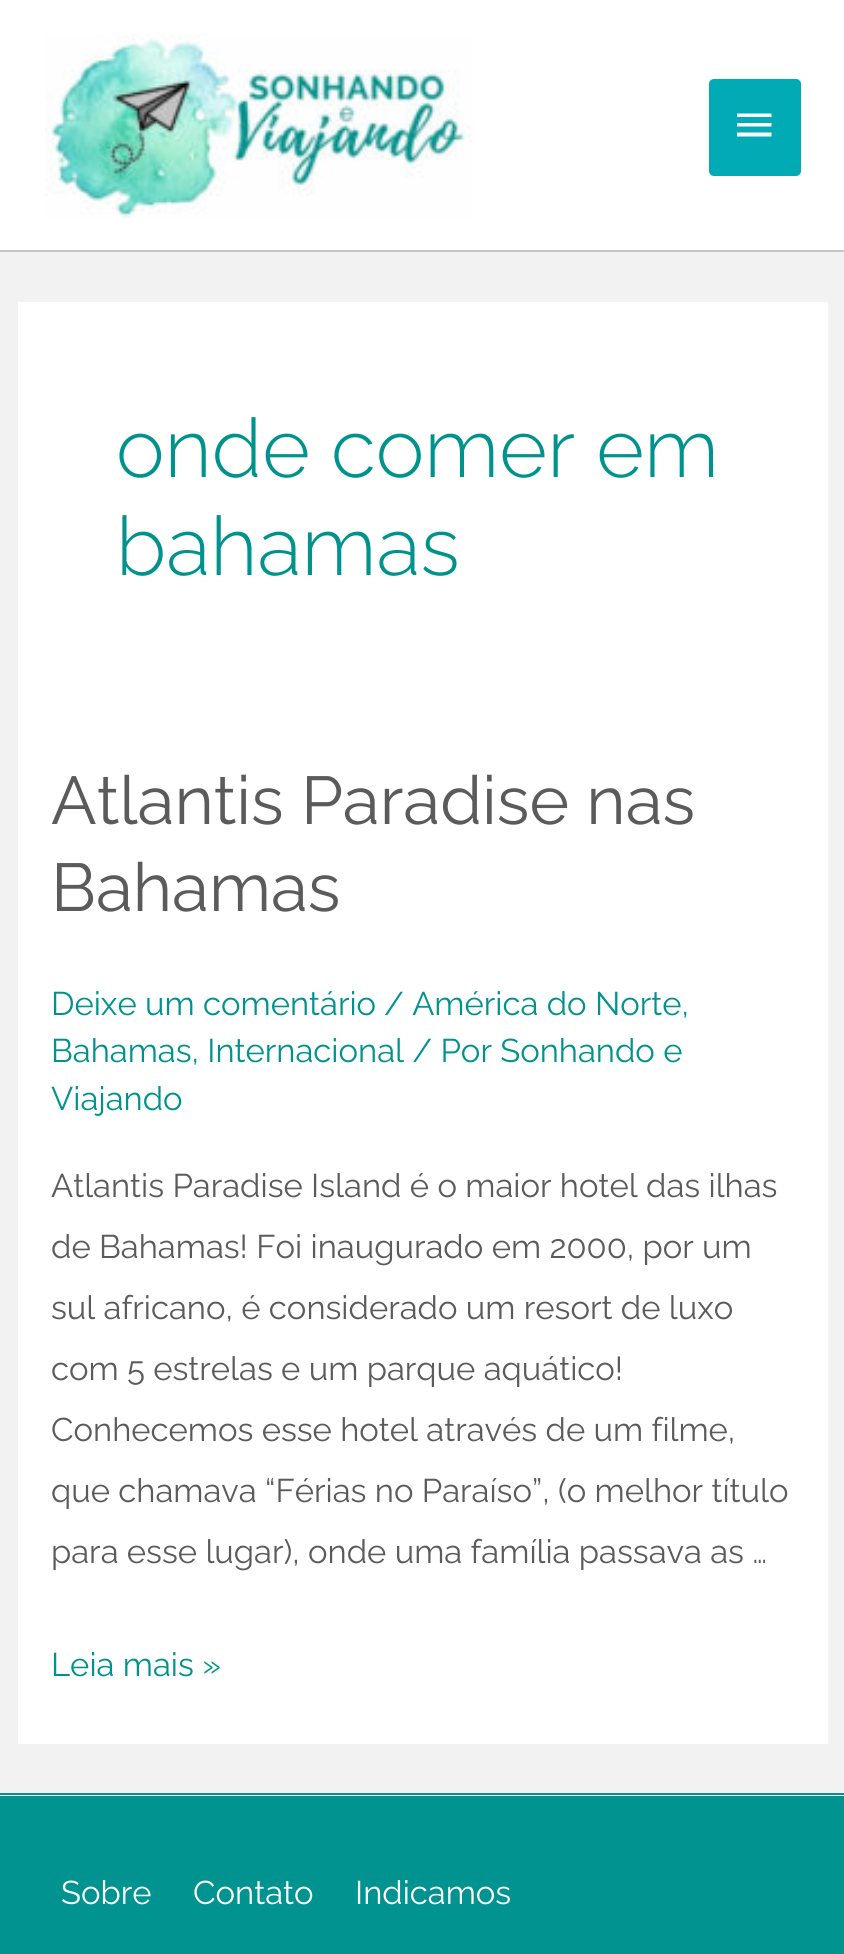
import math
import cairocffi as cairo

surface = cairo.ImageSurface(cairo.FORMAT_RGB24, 844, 1954)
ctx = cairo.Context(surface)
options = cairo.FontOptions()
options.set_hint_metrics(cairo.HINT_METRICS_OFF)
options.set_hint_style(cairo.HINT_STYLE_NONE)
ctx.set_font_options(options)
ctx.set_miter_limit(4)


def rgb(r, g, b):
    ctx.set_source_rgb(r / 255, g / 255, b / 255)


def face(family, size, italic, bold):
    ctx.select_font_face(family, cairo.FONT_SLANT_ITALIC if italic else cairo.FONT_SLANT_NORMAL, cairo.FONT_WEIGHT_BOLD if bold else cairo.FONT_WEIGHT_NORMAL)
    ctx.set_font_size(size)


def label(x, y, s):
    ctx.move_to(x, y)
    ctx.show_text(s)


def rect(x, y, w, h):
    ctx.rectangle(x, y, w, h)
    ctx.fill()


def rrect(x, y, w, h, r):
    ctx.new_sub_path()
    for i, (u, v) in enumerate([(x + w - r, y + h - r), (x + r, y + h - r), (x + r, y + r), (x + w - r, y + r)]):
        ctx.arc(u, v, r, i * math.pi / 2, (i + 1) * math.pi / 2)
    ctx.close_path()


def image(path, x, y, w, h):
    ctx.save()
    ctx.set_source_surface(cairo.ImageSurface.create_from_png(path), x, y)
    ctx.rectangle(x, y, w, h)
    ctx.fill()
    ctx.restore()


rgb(242, 242, 242)
ctx.paint()
rgb(255, 255, 255)
rect(0, 0, 844, 250)
rgb(198, 198, 198)
rect(0, 250, 844, 2)
image('image0.png', 45, 34, 428, 185)
rgb(0, 171, 181)
rrect(709, 79, 92, 97, 5)
ctx.fill()
rgb(255, 255, 255)
ctx.new_path()
ctx.move_to(737, 113.5)
ctx.line_to(771.5, 113.5)
ctx.line_to(771.5, 117)
ctx.line_to(737, 117)
ctx.close_path()
ctx.move_to(737, 126.5)
ctx.line_to(737, 123)
ctx.line_to(771.5, 123)
ctx.line_to(771.5, 126.5)
ctx.close_path()
ctx.move_to(737, 136.5)
ctx.line_to(737, 132.5)
ctx.line_to(771.5, 132.5)
ctx.line_to(771.5, 136.5)
ctx.close_path()
ctx.fill()
rect(18, 302, 810, 1442)
face('Raleway Light', 82, 0, 0)
rgb(0, 147, 142)
label(116, 477, 'onde comer em')
label(116, 575, 'bahamas')
face('Raleway', 67.5, 0, 0)
rgb(91, 91, 91)
label(51, 824, 'Atlantis Paradise nas')
label(51, 911, 'Bahamas')
face('Raleway', 32.8, 0, 0)
rgb(0, 147, 142)
label(51, 1015, 'Deixe um comentário')
label(384, 1015, '/ América do Norte,')
label(51, 1062, 'Bahamas, Internacional / Por Sonhando e')
label(51, 1110, 'Viajando')
rgb(91, 91, 91)
label(51, 1197, 'Atlantis Paradise Island é o maior hotel das ilhas')
label(51, 1258, 'de Bahamas! Foi inaugurado em 2000, por um')
label(51, 1319, 'sul africano, é considerado um resort de luxo')
label(51, 1380, 'com 5 estrelas e um parque aquático!')
label(51, 1441, 'Conhecemos esse hotel através de um filme,')
label(51, 1502, 'que chamava “Férias no Paraíso”, (o melhor título')
label(51, 1563, 'para esse lugar), onde uma família passava as …')
rgb(0, 147, 142)
label(51, 1676, 'Leia mais »')
rgb(0, 147, 143)
rect(0, 1793, 844, 2)
rect(0, 1796, 844, 158)
rgb(255, 255, 255)
label(61, 1904, 'Sobre')
label(193, 1904, 'Contato')
label(355, 1904, 'Indicamos')
surface.write_to_png('render.png')
